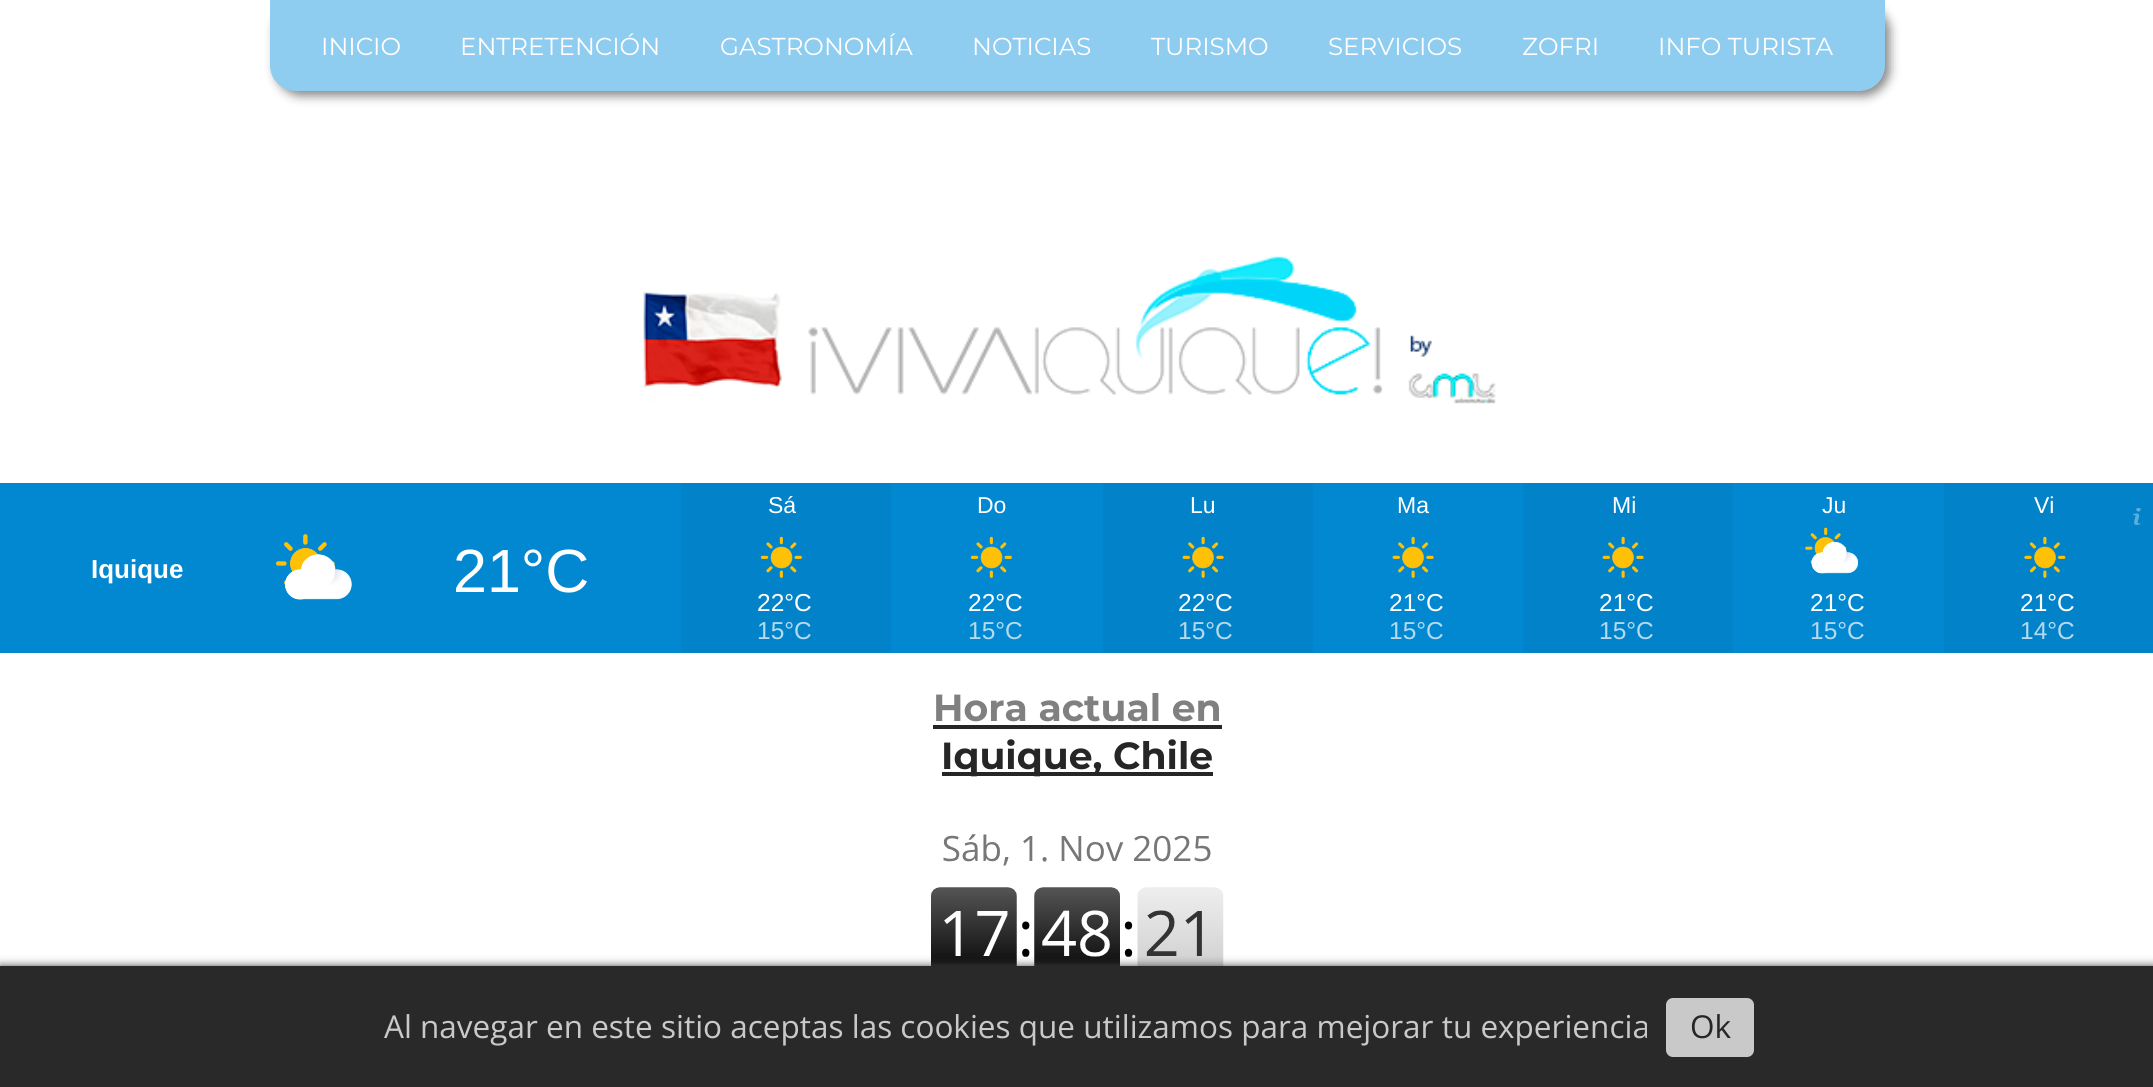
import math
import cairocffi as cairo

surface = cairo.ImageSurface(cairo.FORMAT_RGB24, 2153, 1087)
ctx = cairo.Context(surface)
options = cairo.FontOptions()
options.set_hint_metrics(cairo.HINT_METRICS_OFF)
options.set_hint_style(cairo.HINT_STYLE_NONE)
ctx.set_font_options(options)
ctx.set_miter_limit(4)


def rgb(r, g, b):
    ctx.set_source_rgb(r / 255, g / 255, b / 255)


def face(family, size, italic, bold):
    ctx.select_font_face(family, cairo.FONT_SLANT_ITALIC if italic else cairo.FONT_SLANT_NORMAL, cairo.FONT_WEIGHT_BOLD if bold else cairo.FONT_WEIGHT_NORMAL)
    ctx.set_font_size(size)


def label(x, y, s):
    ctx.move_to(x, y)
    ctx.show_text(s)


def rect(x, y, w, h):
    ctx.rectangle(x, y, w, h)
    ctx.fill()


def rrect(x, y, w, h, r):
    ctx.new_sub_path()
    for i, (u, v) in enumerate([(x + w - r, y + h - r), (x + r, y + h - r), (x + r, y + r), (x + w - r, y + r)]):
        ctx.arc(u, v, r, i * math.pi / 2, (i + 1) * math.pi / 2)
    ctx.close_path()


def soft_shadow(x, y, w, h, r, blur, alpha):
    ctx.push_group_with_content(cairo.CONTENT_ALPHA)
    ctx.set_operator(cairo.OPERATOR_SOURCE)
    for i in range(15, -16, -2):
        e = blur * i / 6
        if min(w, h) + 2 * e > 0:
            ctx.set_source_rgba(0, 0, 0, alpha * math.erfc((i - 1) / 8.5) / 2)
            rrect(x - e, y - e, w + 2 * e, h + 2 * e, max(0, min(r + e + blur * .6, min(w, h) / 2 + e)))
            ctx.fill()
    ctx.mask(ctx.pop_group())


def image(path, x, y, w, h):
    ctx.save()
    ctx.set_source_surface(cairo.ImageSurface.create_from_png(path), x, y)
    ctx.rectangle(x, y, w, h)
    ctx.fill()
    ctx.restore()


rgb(255, 255, 255)
ctx.paint()
rgb(136, 136, 136)
soft_shadow(275, 5, 1615, 91, 26, 5, 1)
rgb(142, 205, 240)
ctx.new_path()
ctx.move_to(270, 0)
ctx.line_to(1885, 0)
ctx.line_to(1885, 65)
ctx.curve_to(1885, 79.5, 1873.5, 91, 1859, 91)
ctx.line_to(296, 91)
ctx.curve_to(281.5, 91, 270, 79.5, 270, 65)
ctx.close_path()
ctx.fill()
face('Montserrat', 24.5, 0, 0)
rgb(255, 255, 255)
label(321, 55, 'INICIO')
label(460, 55, 'ENTRETENCIÓN')
label(720, 55, 'GASTRONOMÍA')
label(972, 55, 'NOTICIAS')
label(1151, 55, 'TURISMO')
label(1328, 55, 'SERVICIOS')
label(1522, 55, 'ZOFRI')
label(1658, 55, 'INFO TURISTA')
image('image0.png', 643, 256, 853, 148)
rgb(2, 136, 209)
rect(0, 483, 1944, 170)
face('Liberation Sans', 26, 0, 1)
rgb(255, 255, 255)
label(91, 578, 'Iquique')
image('image1.png', 276, 534, 76, 66)
face('Liberation Sans', 61, 0, 0)
label(453, 592, '21°C')
rgb(2, 131, 201)
rect(681, 483, 210, 170)
face('Liberation Sans', 23, 0, 0)
rgb(255, 255, 255)
label(768, 513, 'Sá')
image('image2.png', 760, 536, 42, 42)
face('Liberation Sans', 24.5, 0, 0)
label(757, 611, '22°C')
rgb(179, 218, 239)
label(757, 639, '15°C')
face('Liberation Sans', 23, 0, 0)
rgb(255, 255, 255)
label(977, 513, 'Do')
image('image3.png', 970, 536, 42, 42)
face('Liberation Sans', 24.5, 0, 0)
label(968, 611, '22°C')
rgb(179, 218, 239)
label(968, 639, '15°C')
rgb(2, 131, 201)
rect(1103, 483, 210, 170)
face('Liberation Sans', 23, 0, 0)
rgb(255, 255, 255)
label(1190, 513, 'Lu')
image('image4.png', 1182, 536, 42, 42)
face('Liberation Sans', 24.5, 0, 0)
label(1178, 611, '22°C')
rgb(179, 218, 239)
label(1178, 639, '15°C')
face('Liberation Sans', 23, 0, 0)
rgb(255, 255, 255)
label(1397, 513, 'Ma')
image('image5.png', 1392, 536, 42, 42)
face('Liberation Sans', 24.5, 0, 0)
label(1389, 611, '21°C')
rgb(179, 218, 239)
label(1389, 639, '15°C')
rgb(2, 131, 201)
rect(1523, 483, 210, 170)
face('Liberation Sans', 23, 0, 0)
rgb(255, 255, 255)
label(1612, 513, 'Mi')
image('image4.png', 1602, 536, 42, 42)
face('Liberation Sans', 24.5, 0, 0)
label(1599, 611, '21°C')
rgb(179, 218, 239)
label(1599, 639, '15°C')
face('Liberation Sans', 23, 0, 0)
rgb(255, 255, 255)
label(1822, 513, 'Ju')
image('image6.png', 1805, 527, 54, 47)
face('Liberation Sans', 24.5, 0, 0)
label(1810, 611, '21°C')
rgb(179, 218, 239)
label(1810, 639, '15°C')
rgb(2, 131, 201)
rect(1944, 483, 209, 170)
face('Liberation Sans', 23, 0, 0)
rgb(255, 255, 255)
label(2034, 513, 'Vi')
image('image7.png', 2024, 536, 42, 42)
face('Liberation Sans', 24.5, 0, 0)
label(2020, 611, '21°C')
rgb(179, 218, 239)
label(2020, 639, '14°C')
image('image8.png', 2133, 508, 8, 17)
face('Montserrat', 37.75, 0, 1)
rgb(128, 128, 128)
label(933, 721, 'Hora actual en')
rgb(38, 38, 38)
rect(933, 725, 289, 4)
rect(942, 772, 271, 4)
label(941, 769, 'Iquique, Chile')
image('image9.png', 931, 834, 293, 132)
rgb(73, 73, 73)
soft_shadow(0, 966, 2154, 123, 0, 4.5, 1)
rgb(41, 41, 41)
rect(0, 966, 2153, 121)
face('Open Sans', 31.5, 0, 0)
rgb(201, 201, 201)
label(384, 1038, 'Al navegar en este sitio aceptas las cookies que utilizamos para mejorar tu experiencia')
rrect(1666, 998, 88, 59, 7)
ctx.fill()
rgb(38, 38, 38)
label(1690, 1038, 'Ok')
surface.write_to_png('render.png')
